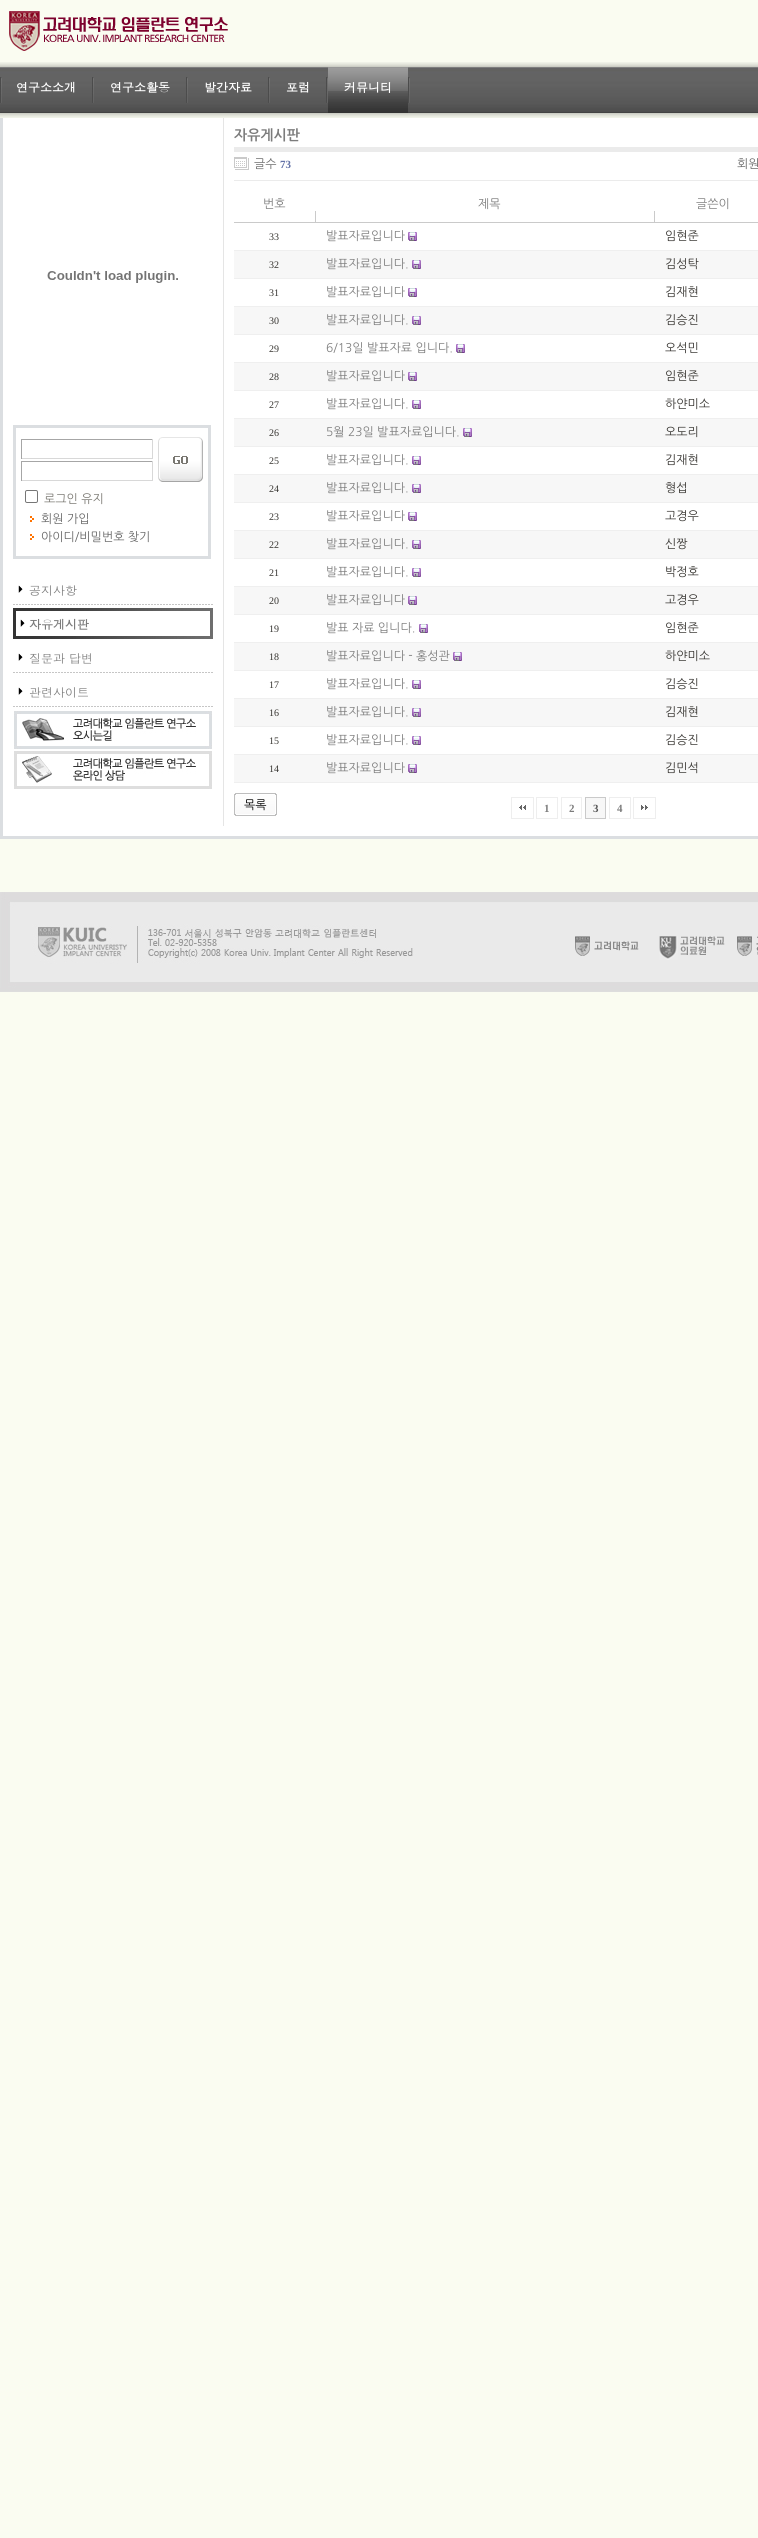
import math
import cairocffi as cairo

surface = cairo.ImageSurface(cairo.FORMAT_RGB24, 758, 2538)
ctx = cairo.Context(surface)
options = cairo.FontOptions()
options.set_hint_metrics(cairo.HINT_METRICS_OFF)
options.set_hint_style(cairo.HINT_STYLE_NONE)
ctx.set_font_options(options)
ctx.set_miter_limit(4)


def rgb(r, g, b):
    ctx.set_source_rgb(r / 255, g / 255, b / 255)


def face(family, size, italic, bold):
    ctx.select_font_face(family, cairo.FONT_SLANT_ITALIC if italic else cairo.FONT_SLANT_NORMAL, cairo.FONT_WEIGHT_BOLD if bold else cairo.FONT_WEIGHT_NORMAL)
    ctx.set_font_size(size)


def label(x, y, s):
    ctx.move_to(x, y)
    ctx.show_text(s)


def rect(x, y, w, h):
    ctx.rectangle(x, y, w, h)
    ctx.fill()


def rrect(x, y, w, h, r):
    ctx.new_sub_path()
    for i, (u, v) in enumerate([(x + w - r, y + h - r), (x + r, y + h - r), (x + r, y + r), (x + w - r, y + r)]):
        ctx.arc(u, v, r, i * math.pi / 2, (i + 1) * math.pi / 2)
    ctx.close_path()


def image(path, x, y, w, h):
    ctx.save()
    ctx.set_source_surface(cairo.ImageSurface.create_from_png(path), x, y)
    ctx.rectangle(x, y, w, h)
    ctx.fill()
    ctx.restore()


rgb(250, 252, 241)
ctx.paint()
image('image0.png', 9, 11, 219, 40)
image('image1.png', 0, 62, 758, 56)
image('image2.png', 0, 77, 2, 26)
image('image2.png', 92, 77, 2, 26)
face('Dotum', 12, 0, 1)
rgb(255, 255, 255)
label(16, 92, '연구소소개')
image('image2.png', 186, 77, 2, 26)
label(110, 92, '연구소활동')
image('image2.png', 268, 77, 2, 26)
label(204, 92, '발간자료')
image('image2.png', 326, 77, 2, 26)
label(286, 92, '포럼')
image('image2.png', 408, 77, 2, 26)
image('image3.png', 328, 67, 80, 46)
label(344, 92, '커뮤니티')
rect(3, 118, 755, 718)
rgb(219, 222, 225)
rect(0, 836, 758, 3)
rect(0, 118, 3, 721)
image('image4.png', 47, 271, 131, 12)
ctx.rectangle(14.5, 426.5, 195, 131)
ctx.set_line_width(3)
ctx.stroke()
rgb(166, 166, 166)
rect(21, 439, 132, 1)
rgb(216, 216, 216)
rect(152, 439, 1, 20)
rect(21, 458, 132, 1)
rgb(166, 166, 166)
rect(21, 439, 1, 20)
rect(21, 461, 132, 1)
rgb(216, 216, 216)
rect(152, 461, 1, 20)
rect(21, 480, 132, 1)
rgb(166, 166, 166)
rect(21, 461, 1, 20)
image('image5.png', 158, 437, 45, 45)
rrect(25.5, 490.5, 12, 12, 1.5)
rgb(118, 118, 118)
ctx.set_line_width(1)
ctx.stroke()
face('NanumGothic', 12, 0, 0)
rgb(121, 119, 113)
label(44, 503, '로그인 유지')
image('image6.png', 30, 516, 4, 6)
rgb(102, 102, 102)
label(41, 523, '회원 가입')
image('image6.png', 30, 534, 4, 6)
label(41, 541, '아이디/비밀번호 찾기')
image('image7.png', 13, 585, 200, 20)
face('Dotum', 12, 0, 0)
rgb(124, 124, 124)
label(29, 595, '공지사항')
image('image8.png', 13, 608, 200, 31)
face('Dotum', 12, 0, 1)
label(29, 629, '자유게시판')
image('image7.png', 13, 653, 200, 20)
face('Dotum', 12, 0, 0)
label(29, 663, '질문과 답변')
image('image7.png', 13, 687, 200, 20)
label(29, 697, '관련사이트')
image('image9.png', 14, 711, 198, 38)
image('image10.png', 14, 751, 198, 38)
rgb(229, 229, 229)
rect(223, 118, 1, 708)
rgb(235, 235, 235)
rect(234, 147, 524, 5)
face('NanumGothic', 14, 0, 1)
rgb(124, 124, 124)
label(234, 140, '자유게시판')
rgb(235, 235, 235)
rect(234, 180, 524, 1)
image('image11.png', 234, 157, 15, 13)
face('NanumGothic', 12, 0, 0)
rgb(102, 102, 102)
label(254, 168, '글수')
face('Liberation Serif', 11, 0, 1)
rgb(99, 114, 167)
label(280, 168, '73')
face('NanumGothic', 12, 0, 0)
rgb(102, 102, 102)
label(737, 168, '회원')
rgb(202, 202, 202)
rect(234, 222, 524, 1)
rgb(124, 124, 124)
label(263, 208, '번호')
rgb(202, 202, 202)
rect(315, 211, 1, 11)
rgb(124, 124, 124)
label(478, 208, '제목')
rgb(202, 202, 202)
rect(654, 211, 1, 11)
rgb(124, 124, 124)
label(696, 208, '글쓴이')
rgb(239, 239, 239)
rect(234, 250, 524, 1)
face('Liberation Serif', 10, 0, 0)
rgb(54, 52, 48)
label(269, 240, '33')
face('NanumGothic', 12, 0, 0)
rgb(124, 124, 124)
label(326, 240, '발표자료입니다')
image('image12.png', 408, 232, 9, 9)
rgb(54, 52, 48)
label(665, 240, '임현준')
rgb(247, 247, 247)
rect(234, 251, 524, 27)
rgb(239, 239, 239)
rect(234, 278, 524, 1)
face('Liberation Serif', 10, 0, 0)
rgb(54, 52, 48)
label(269, 268, '32')
face('NanumGothic', 12, 0, 0)
rgb(124, 124, 124)
label(326, 268, '발표자료입니다.')
image('image13.png', 412, 260, 9, 9)
rgb(54, 52, 48)
label(665, 268, '김성탁')
rgb(239, 239, 239)
rect(234, 306, 524, 1)
face('Liberation Serif', 10, 0, 0)
rgb(54, 52, 48)
label(269, 296, '31')
face('NanumGothic', 12, 0, 0)
rgb(124, 124, 124)
label(326, 296, '발표자료입니다')
image('image12.png', 408, 288, 9, 9)
rgb(54, 52, 48)
label(665, 296, '김재현')
rgb(247, 247, 247)
rect(234, 307, 524, 27)
rgb(239, 239, 239)
rect(234, 334, 524, 1)
face('Liberation Serif', 10, 0, 0)
rgb(54, 52, 48)
label(269, 324, '30')
face('NanumGothic', 12, 0, 0)
rgb(124, 124, 124)
label(326, 324, '발표자료입니다.')
image('image13.png', 412, 316, 9, 9)
rgb(54, 52, 48)
label(665, 324, '김승진')
rgb(239, 239, 239)
rect(234, 362, 524, 1)
face('Liberation Serif', 10, 0, 0)
rgb(54, 52, 48)
label(269, 352, '29')
face('NanumGothic', 12, 0, 0)
rgb(124, 124, 124)
label(326, 352, '6/13일 발표자료 입니다.')
image('image12.png', 456, 344, 9, 9)
rgb(54, 52, 48)
label(665, 352, '오석민')
rgb(247, 247, 247)
rect(234, 363, 524, 27)
rgb(239, 239, 239)
rect(234, 390, 524, 1)
face('Liberation Serif', 10, 0, 0)
rgb(54, 52, 48)
label(269, 380, '28')
face('NanumGothic', 12, 0, 0)
rgb(124, 124, 124)
label(326, 380, '발표자료입니다')
image('image13.png', 408, 372, 9, 9)
rgb(54, 52, 48)
label(665, 380, '임현준')
rgb(239, 239, 239)
rect(234, 418, 524, 1)
face('Liberation Serif', 10, 0, 0)
rgb(54, 52, 48)
label(269, 408, '27')
face('NanumGothic', 12, 0, 0)
rgb(124, 124, 124)
label(326, 408, '발표자료입니다.')
image('image12.png', 412, 400, 9, 9)
rgb(54, 52, 48)
label(665, 408, '하얀미소')
rgb(247, 247, 247)
rect(234, 419, 524, 27)
rgb(239, 239, 239)
rect(234, 446, 524, 1)
face('Liberation Serif', 10, 0, 0)
rgb(54, 52, 48)
label(269, 436, '26')
face('NanumGothic', 12, 0, 0)
rgb(124, 124, 124)
label(326, 436, '5월 23일 발표자료입니다.')
image('image13.png', 463, 428, 9, 9)
rgb(54, 52, 48)
label(665, 436, '오도리')
rgb(239, 239, 239)
rect(234, 474, 524, 1)
face('Liberation Serif', 10, 0, 0)
rgb(54, 52, 48)
label(269, 464, '25')
face('NanumGothic', 12, 0, 0)
rgb(124, 124, 124)
label(326, 464, '발표자료입니다.')
image('image12.png', 412, 456, 9, 9)
rgb(54, 52, 48)
label(665, 464, '김재현')
rgb(247, 247, 247)
rect(234, 475, 524, 27)
rgb(239, 239, 239)
rect(234, 502, 524, 1)
face('Liberation Serif', 10, 0, 0)
rgb(54, 52, 48)
label(269, 492, '24')
face('NanumGothic', 12, 0, 0)
rgb(124, 124, 124)
label(326, 492, '발표자료입니다.')
image('image13.png', 412, 484, 9, 9)
rgb(54, 52, 48)
label(665, 492, '형섭')
rgb(239, 239, 239)
rect(234, 530, 524, 1)
face('Liberation Serif', 10, 0, 0)
rgb(54, 52, 48)
label(269, 520, '23')
face('NanumGothic', 12, 0, 0)
rgb(124, 124, 124)
label(326, 520, '발표자료입니다')
image('image12.png', 408, 512, 9, 9)
rgb(54, 52, 48)
label(665, 520, '고경우')
rgb(247, 247, 247)
rect(234, 531, 524, 27)
rgb(239, 239, 239)
rect(234, 558, 524, 1)
face('Liberation Serif', 10, 0, 0)
rgb(54, 52, 48)
label(269, 548, '22')
face('NanumGothic', 12, 0, 0)
rgb(124, 124, 124)
label(326, 548, '발표자료입니다.')
image('image13.png', 412, 540, 9, 9)
rgb(54, 52, 48)
label(665, 548, '신짱')
rgb(239, 239, 239)
rect(234, 586, 524, 1)
face('Liberation Serif', 10, 0, 0)
rgb(54, 52, 48)
label(269, 576, '21')
face('NanumGothic', 12, 0, 0)
rgb(124, 124, 124)
label(326, 576, '발표자료입니다.')
image('image12.png', 412, 568, 9, 9)
rgb(54, 52, 48)
label(665, 576, '박정호')
rgb(247, 247, 247)
rect(234, 587, 524, 27)
rgb(239, 239, 239)
rect(234, 614, 524, 1)
face('Liberation Serif', 10, 0, 0)
rgb(54, 52, 48)
label(269, 604, '20')
face('NanumGothic', 12, 0, 0)
rgb(124, 124, 124)
label(326, 604, '발표자료입니다')
image('image13.png', 408, 596, 9, 9)
rgb(54, 52, 48)
label(665, 604, '고경우')
rgb(239, 239, 239)
rect(234, 642, 524, 1)
face('Liberation Serif', 10, 0, 0)
rgb(54, 52, 48)
label(269, 632, '19')
face('NanumGothic', 12, 0, 0)
rgb(124, 124, 124)
label(326, 632, '발표 자료 입니다.')
image('image12.png', 419, 624, 9, 9)
rgb(54, 52, 48)
label(665, 632, '임현준')
rgb(247, 247, 247)
rect(234, 643, 524, 27)
rgb(239, 239, 239)
rect(234, 670, 524, 1)
face('Liberation Serif', 10, 0, 0)
rgb(54, 52, 48)
label(269, 660, '18')
face('NanumGothic', 12, 0, 0)
rgb(124, 124, 124)
label(326, 660, '발표자료입니다 - 홍성관')
image('image13.png', 453, 652, 9, 9)
rgb(54, 52, 48)
label(665, 660, '하얀미소')
rgb(239, 239, 239)
rect(234, 698, 524, 1)
face('Liberation Serif', 10, 0, 0)
rgb(54, 52, 48)
label(269, 688, '17')
face('NanumGothic', 12, 0, 0)
rgb(124, 124, 124)
label(326, 688, '발표자료입니다.')
image('image12.png', 412, 680, 9, 9)
rgb(54, 52, 48)
label(665, 688, '김승진')
rgb(247, 247, 247)
rect(234, 699, 524, 27)
rgb(239, 239, 239)
rect(234, 726, 524, 1)
face('Liberation Serif', 10, 0, 0)
rgb(54, 52, 48)
label(269, 716, '16')
face('NanumGothic', 12, 0, 0)
rgb(124, 124, 124)
label(326, 716, '발표자료입니다.')
image('image13.png', 412, 708, 9, 9)
rgb(54, 52, 48)
label(665, 716, '김재현')
rgb(239, 239, 239)
rect(234, 754, 524, 1)
face('Liberation Serif', 10, 0, 0)
rgb(54, 52, 48)
label(269, 744, '15')
face('NanumGothic', 12, 0, 0)
rgb(124, 124, 124)
label(326, 744, '발표자료입니다.')
image('image12.png', 412, 736, 9, 9)
rgb(54, 52, 48)
label(665, 744, '김승진')
rgb(247, 247, 247)
rect(234, 755, 524, 27)
rgb(239, 239, 239)
rect(234, 782, 524, 1)
face('Liberation Serif', 10, 0, 0)
rgb(54, 52, 48)
label(269, 772, '14')
face('NanumGothic', 12, 0, 0)
rgb(124, 124, 124)
label(326, 772, '발표자료입니다')
image('image13.png', 408, 764, 9, 9)
rgb(54, 52, 48)
label(665, 772, '김민석')
image('image14.png', 234, 793, 2, 23)
image('image15.png', 236, 793, 41, 23)
rgb(0, 0, 0)
label(244, 809, '목록')
ctx.rectangle(511.5, 797.5, 22, 21)
rgb(238, 238, 238)
ctx.stroke()
ctx.rectangle(536.5, 797.5, 21, 21)
ctx.stroke()
face('Liberation Serif', 11, 0, 1)
rgb(124, 124, 124)
label(544, 812, '1')
ctx.rectangle(561.5, 797.5, 20, 21)
rgb(238, 238, 238)
ctx.stroke()
rgb(124, 124, 124)
label(569, 812, '2')
rgb(247, 247, 247)
ctx.rectangle(585.5, 797.5, 20, 21)
ctx.fill_preserve()
rgb(202, 202, 202)
ctx.stroke()
rgb(84, 84, 84)
label(593, 812, '3')
ctx.rectangle(609.5, 797.5, 21, 21)
rgb(238, 238, 238)
ctx.stroke()
rgb(124, 124, 124)
label(617, 812, '4')
ctx.rectangle(633.5, 797.5, 22, 21)
rgb(238, 238, 238)
ctx.stroke()
image('image16.png', 519, 805, 7, 5)
image('image17.png', 641, 805, 7, 5)
image('image18.png', 0, 892, 758, 100)
image('image19.png', 575, 936, 64, 20)
image('image20.png', 659, 936, 66, 24)
image('image21.png', 737, 936, 21, 20)
surface.write_to_png('render.png')
